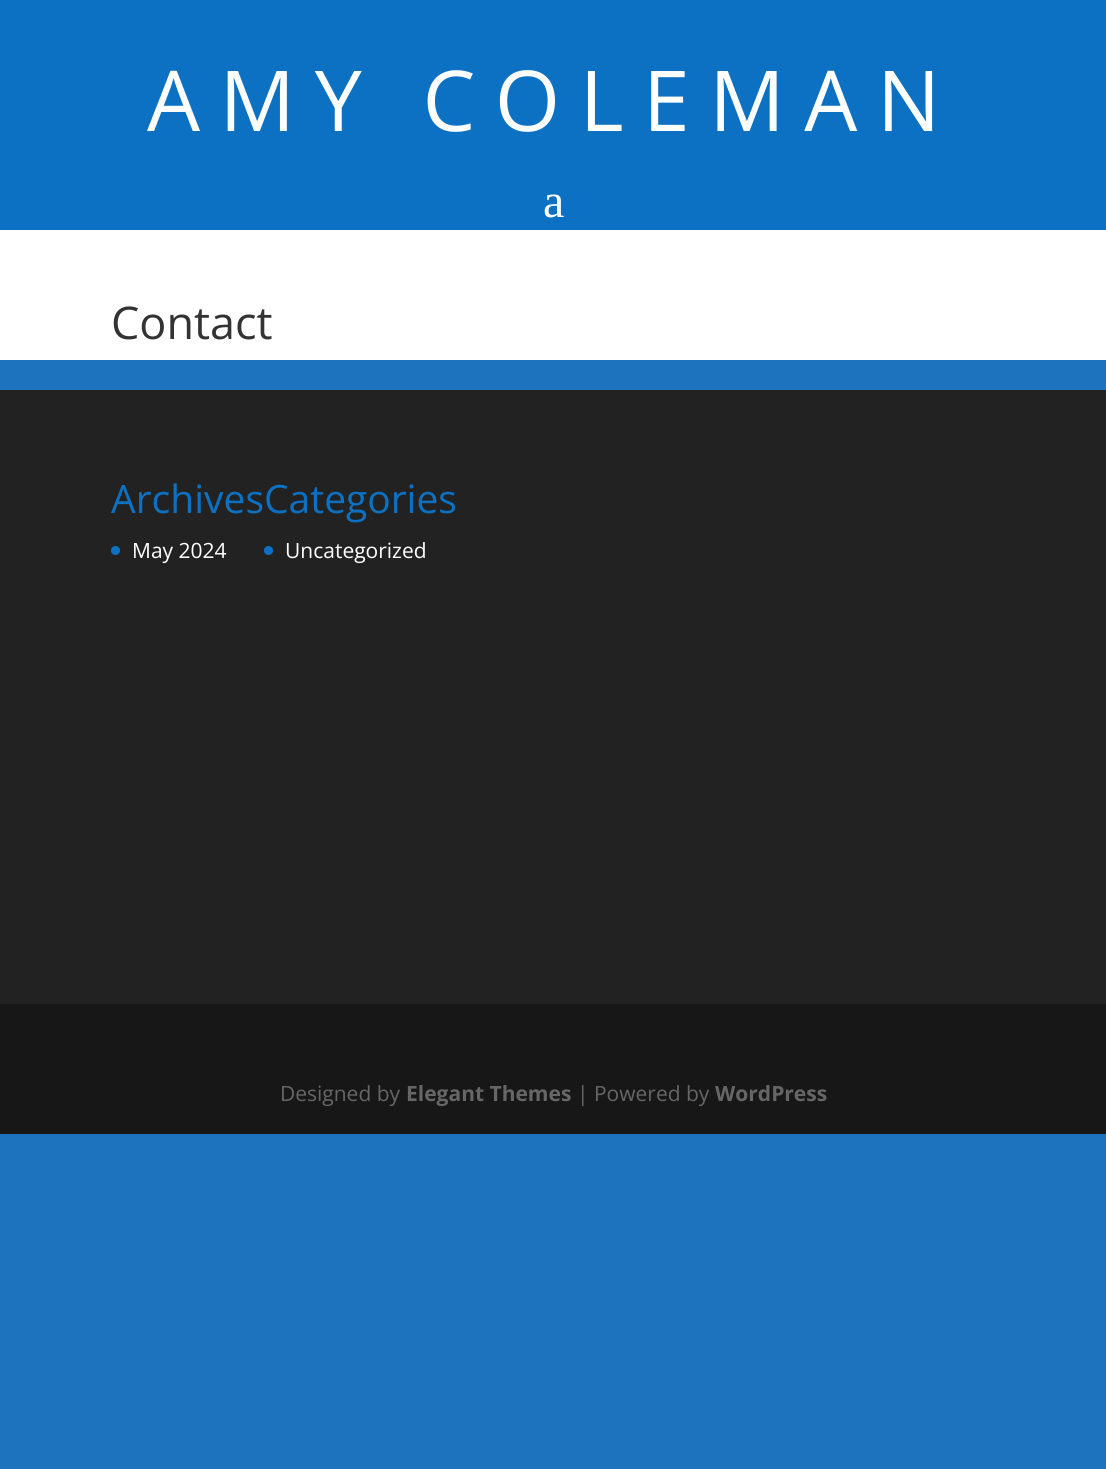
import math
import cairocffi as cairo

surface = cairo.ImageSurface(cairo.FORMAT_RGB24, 1106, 1469)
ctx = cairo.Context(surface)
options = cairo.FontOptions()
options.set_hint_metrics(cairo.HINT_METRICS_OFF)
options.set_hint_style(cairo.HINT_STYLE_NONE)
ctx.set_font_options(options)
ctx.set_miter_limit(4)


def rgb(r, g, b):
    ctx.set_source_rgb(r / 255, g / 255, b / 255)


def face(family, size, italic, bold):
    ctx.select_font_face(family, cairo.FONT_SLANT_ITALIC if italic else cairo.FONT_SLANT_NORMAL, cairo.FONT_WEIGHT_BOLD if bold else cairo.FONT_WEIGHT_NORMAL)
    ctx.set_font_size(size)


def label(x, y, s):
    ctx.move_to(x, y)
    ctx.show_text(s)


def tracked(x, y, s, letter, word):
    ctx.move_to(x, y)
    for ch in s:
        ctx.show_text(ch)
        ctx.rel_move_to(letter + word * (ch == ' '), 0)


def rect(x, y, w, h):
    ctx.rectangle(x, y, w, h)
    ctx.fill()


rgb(30, 115, 190)
ctx.paint()
rgb(12, 113, 195)
rect(0, 0, 1106, 230)
face('Open Sans', 84, 0, 0)
rgb(255, 255, 255)
tracked(147, 131, 'AMY COLEMAN', 19.5, 0)
face('Liberation Serif', 48, 0, 0)
label(543, 217, 'a')
rect(0, 230, 1106, 130)
face('Open Sans', 45, 0, 0)
rgb(51, 51, 51)
label(111, 339, 'Contact')
rgb(34, 34, 34)
rect(0, 390, 1106, 614)
face('Open Sans', 39, 0, 0)
rgb(12, 113, 195)
label(111, 513, 'ArchivesCategories')
ctx.new_path()
ctx.arc(115.5, 550.5, 4.5, 0, 2 * math.pi)
ctx.fill()
face('Open Sans', 21, 0, 0)
rgb(255, 255, 255)
label(132, 558, 'May 2024')
rgb(12, 113, 195)
ctx.new_path()
ctx.arc(268.5, 550.5, 4.5, 0, 2 * math.pi)
ctx.fill()
rgb(255, 255, 255)
label(285, 558, 'Uncategorized')
rgb(23, 23, 23)
rect(0, 1004, 1106, 130)
rgb(102, 102, 102)
label(280, 1101, 'Designed by')
face('Open Sans', 21, 0, 1)
label(406, 1101, 'Elegant Themes')
face('Open Sans', 21, 0, 0)
label(577, 1101, '| Powered by')
face('Open Sans', 21, 0, 1)
label(715, 1101, 'WordPress')
surface.write_to_png('render.png')
